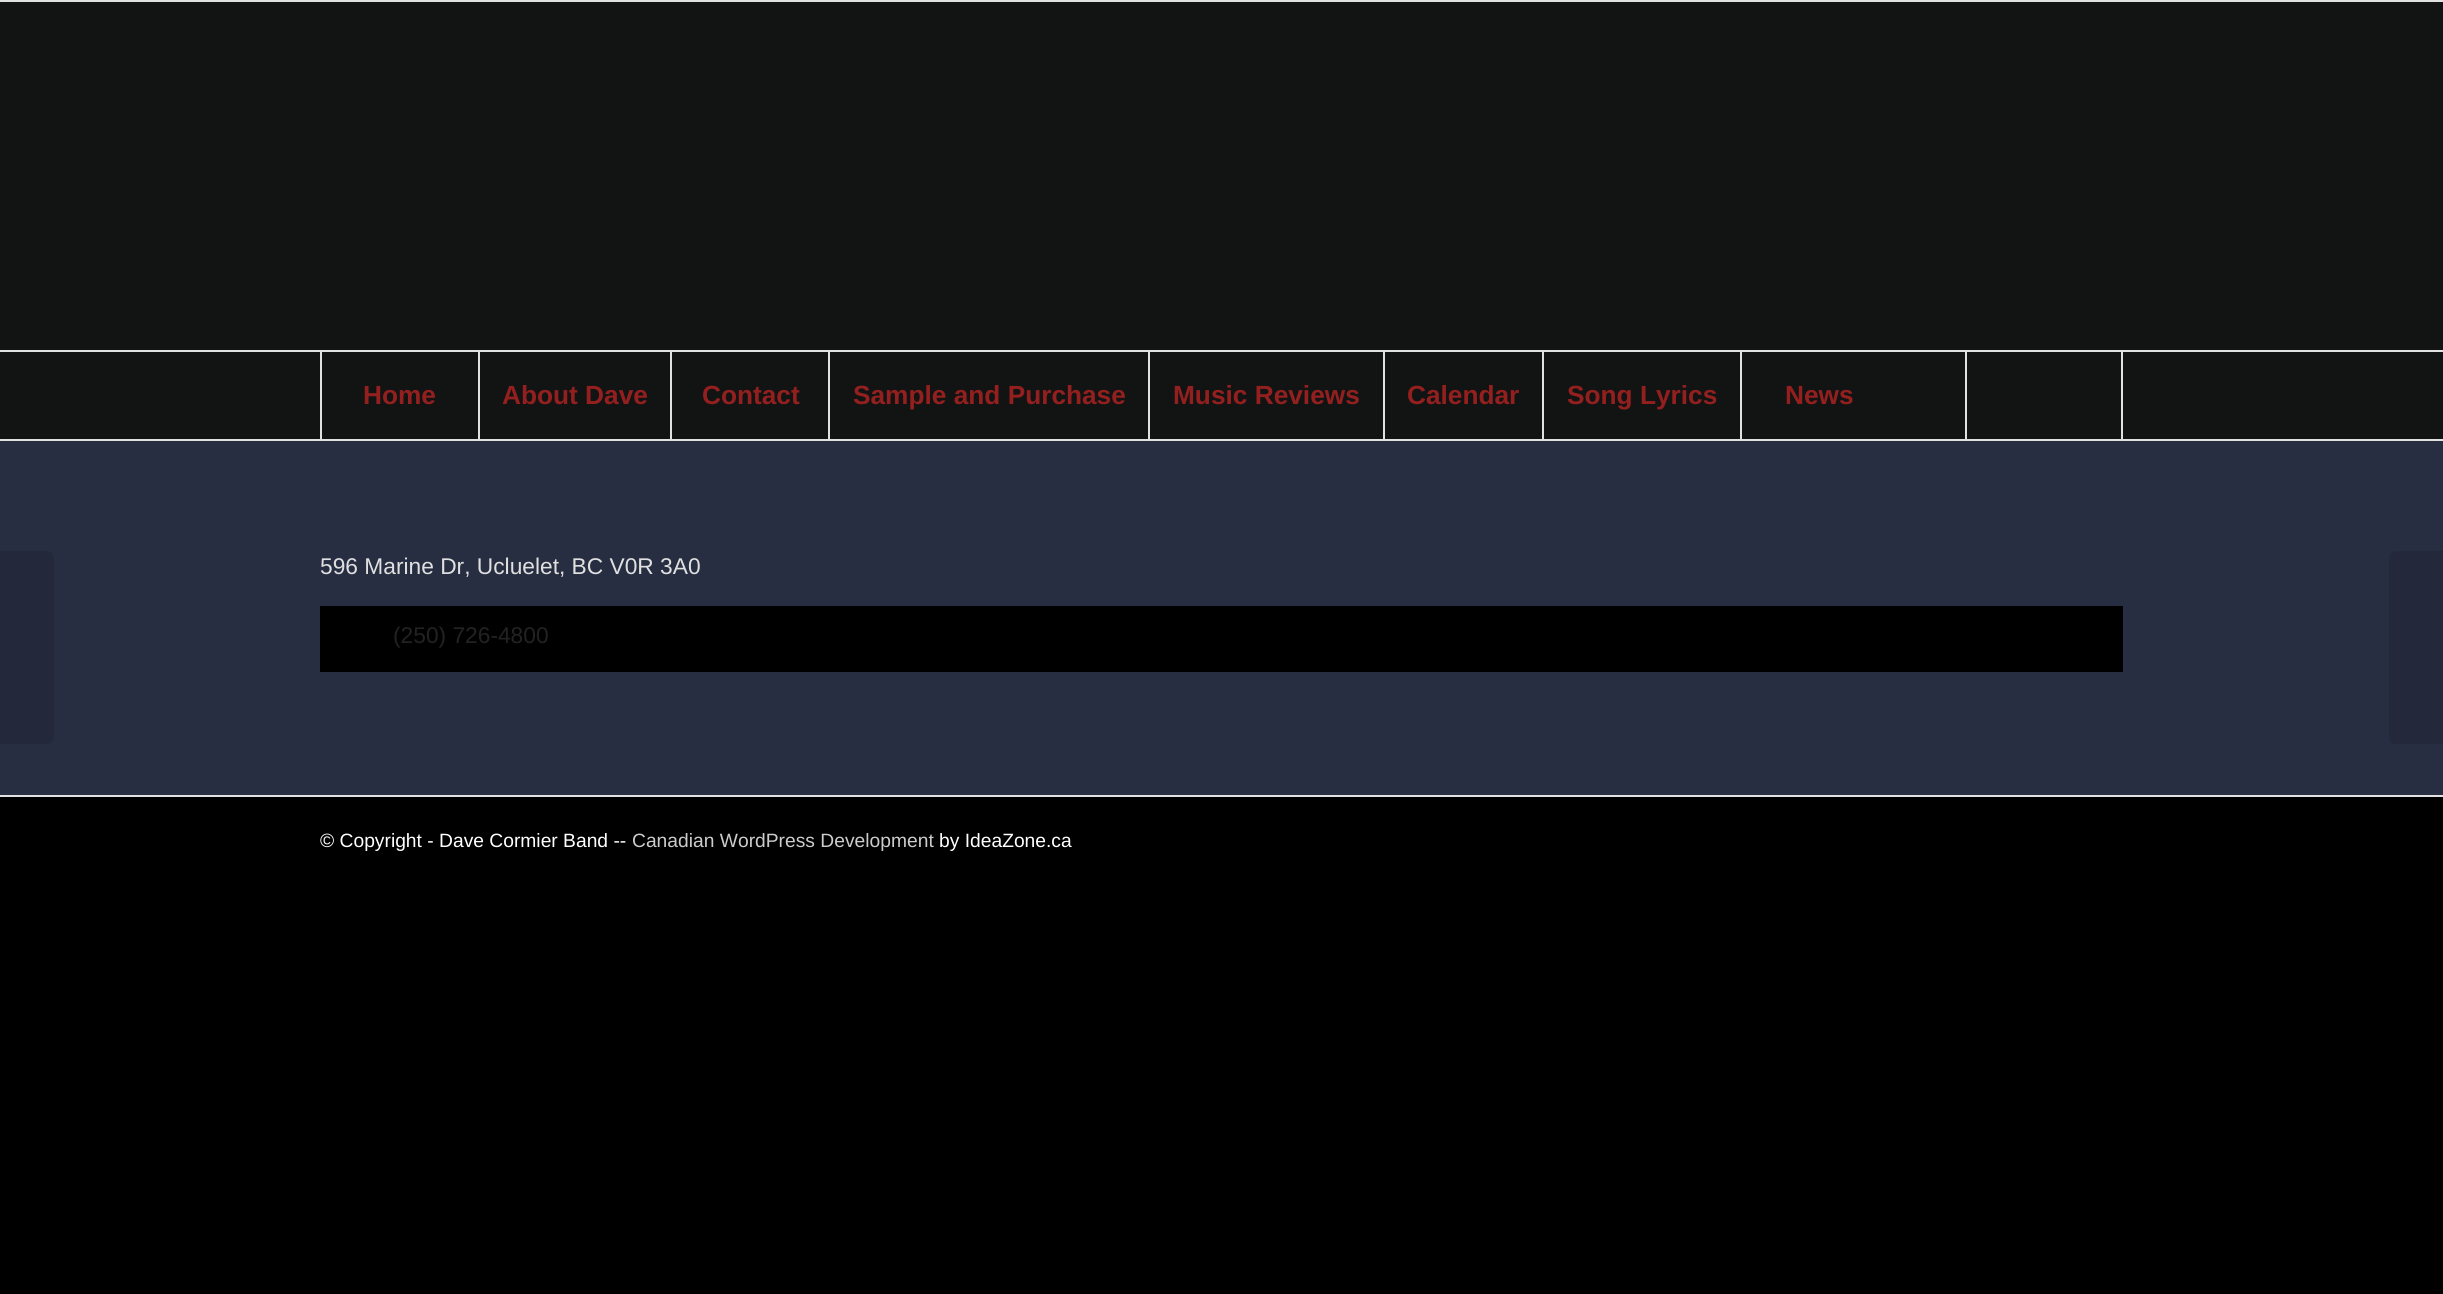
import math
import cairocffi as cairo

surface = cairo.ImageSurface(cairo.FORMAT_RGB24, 2443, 1294)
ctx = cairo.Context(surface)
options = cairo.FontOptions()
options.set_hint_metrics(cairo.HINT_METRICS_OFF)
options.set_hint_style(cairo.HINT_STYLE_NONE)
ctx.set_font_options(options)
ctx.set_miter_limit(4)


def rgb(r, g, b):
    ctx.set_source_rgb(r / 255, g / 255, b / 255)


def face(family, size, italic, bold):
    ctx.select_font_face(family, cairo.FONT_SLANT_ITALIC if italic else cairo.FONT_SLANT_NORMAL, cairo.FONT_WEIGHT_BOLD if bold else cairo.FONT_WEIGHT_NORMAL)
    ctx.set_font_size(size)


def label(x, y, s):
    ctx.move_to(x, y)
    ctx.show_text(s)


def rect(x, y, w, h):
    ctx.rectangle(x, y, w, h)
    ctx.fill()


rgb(0, 0, 0)
ctx.paint()
rgb(225, 225, 225)
rect(0, 0, 2443, 2)
rect(0, 439, 2443, 2)
rgb(18, 19, 19)
rect(0, 2, 2443, 437)
rgb(225, 225, 225)
rect(0, 350, 2443, 2)
rect(320, 352, 2, 87)
face('Liberation Sans', 26.25, 0, 1)
rgb(148, 31, 31)
label(363, 404, 'Home')
rgb(225, 225, 225)
rect(478, 352, 2, 87)
rgb(148, 31, 31)
label(502, 404, 'About Dave')
rgb(225, 225, 225)
rect(670, 352, 2, 87)
rgb(148, 31, 31)
label(702, 404, 'Contact')
rgb(225, 225, 225)
rect(828, 352, 2, 87)
rgb(148, 31, 31)
label(853, 404, 'Sample and Purchase')
rgb(225, 225, 225)
rect(1148, 352, 2, 87)
rgb(148, 31, 31)
label(1173, 404, 'Music Reviews')
rgb(225, 225, 225)
rect(1383, 352, 2, 87)
rgb(148, 31, 31)
label(1407, 404, 'Calendar')
rgb(225, 225, 225)
rect(1542, 352, 2, 87)
rgb(148, 31, 31)
label(1567, 404, 'Song Lyrics')
rgb(225, 225, 225)
rect(1740, 352, 2, 87)
rgb(148, 31, 31)
label(1785, 404, 'News')
rgb(225, 225, 225)
rect(2121, 352, 2, 87)
rect(1965, 352, 2, 87)
rgb(39, 46, 65)
rect(0, 441, 2443, 354)
rgb(35, 41, 59)
ctx.new_path()
ctx.move_to(0, 551)
ctx.line_to(47, 551)
ctx.curve_to(51, 551, 54, 554, 54, 558)
ctx.line_to(54, 737)
ctx.curve_to(54, 741, 51, 744, 47, 744)
ctx.line_to(0, 744)
ctx.close_path()
ctx.fill()
face('Liberation Sans', 22.75, 0, 0)
rgb(224, 224, 224)
label(320, 574, '596 Marine Dr, Ucluelet, BC V0R 3A0')
rgb(0, 0, 0)
rect(320, 606, 1803, 66)
rgb(34, 34, 34)
label(393, 643, '(250) 726-4800')
rgb(225, 225, 225)
rect(0, 795, 2443, 2)
face('Liberation Sans', 19.25, 0, 0)
rgb(255, 255, 255)
label(320, 847, '© Copyright - Dave Cormier Band --')
rgb(204, 204, 204)
label(632, 847, 'Canadian WordPress Development')
rgb(255, 255, 255)
label(939, 847, 'by IdeaZone.ca')
rgb(35, 41, 59)
ctx.new_path()
ctx.move_to(2396, 551)
ctx.line_to(2443, 551)
ctx.line_to(2443, 744)
ctx.line_to(2396, 744)
ctx.curve_to(2392, 744, 2389, 741, 2389, 737)
ctx.line_to(2389, 558)
ctx.curve_to(2389, 554, 2392, 551, 2396, 551)
ctx.close_path()
ctx.fill()
surface.write_to_png('render.png')
